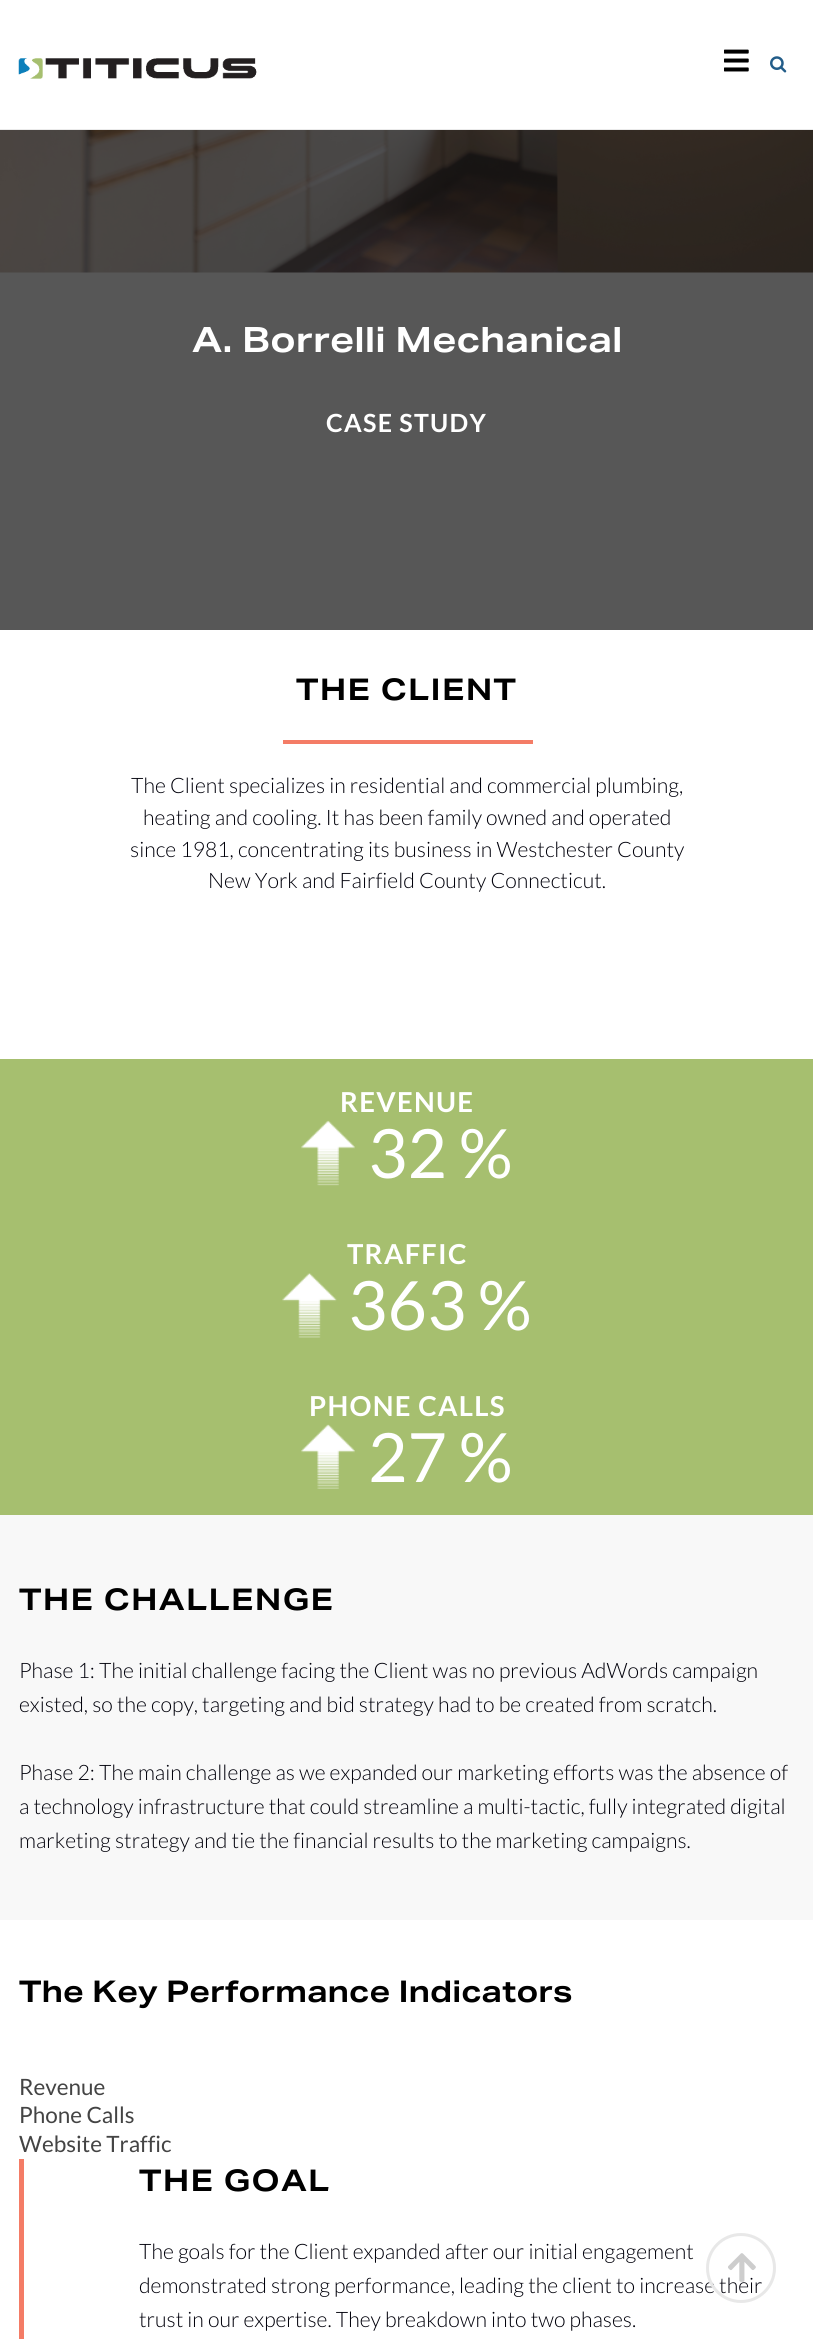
import math
import cairocffi as cairo

surface = cairo.ImageSurface(cairo.FORMAT_RGB24, 813, 2339)
ctx = cairo.Context(surface)
options = cairo.FontOptions()
options.set_hint_metrics(cairo.HINT_METRICS_OFF)
options.set_hint_style(cairo.HINT_STYLE_NONE)
ctx.set_font_options(options)
ctx.set_miter_limit(4)


def rgb(r, g, b):
    ctx.set_source_rgb(r / 255, g / 255, b / 255)


def face(family, size, italic, bold):
    ctx.select_font_face(family, cairo.FONT_SLANT_ITALIC if italic else cairo.FONT_SLANT_NORMAL, cairo.FONT_WEIGHT_BOLD if bold else cairo.FONT_WEIGHT_NORMAL)
    ctx.set_font_size(size)


def label(x, y, s):
    ctx.move_to(x, y)
    ctx.show_text(s)


def tracked(x, y, s, letter, word):
    ctx.move_to(x, y)
    for ch in s:
        ctx.show_text(ch)
        ctx.rel_move_to(letter + word * (ch == ' '), 0)


def rect(x, y, w, h):
    ctx.rectangle(x, y, w, h)
    ctx.fill()


def image(path, x, y, w, h):
    ctx.save()
    ctx.set_source_surface(cairo.ImageSurface.create_from_png(path), x, y)
    ctx.rectangle(x, y, w, h)
    ctx.fill()
    ctx.restore()


rgb(255, 255, 255)
ctx.paint()
rgb(87, 87, 87)
rect(0, 272, 813, 358)
rgb(234, 234, 234)
rect(0, 129, 813, 1)
image('image0.png', 18, 58, 239, 21)
image('image1.png', 724, 49, 25, 23)
image('image2.png', 770, 56, 17, 17)
image('image3.png', 0, 130, 813, 143)
face('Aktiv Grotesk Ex', 35, 0, 1)
rgb(255, 255, 255)
label(192, 352, 'A. Borrelli Mechanical')
face('Lato', 25, 0, 1)
tracked(326, 432, 'CASE STUDY', 1.25, 0)
face('Aktiv Grotesk Ex', 30, 0, 1)
rgb(0, 0, 0)
tracked(296, 700, 'THE CLIENT', 1.25, 0)
rgb(244, 124, 102)
rect(283, 740, 250, 4)
face('Lato Light', 21.25, 0, 0)
rgb(0, 0, 10)
label(131, 793, 'The Client specializes in residential and commercial plumbing,')
label(143, 825, 'heating and cooling. It has been family owned and operated')
label(130, 857, 'since 1981, concentrating its business in Westchester County')
label(208, 888, 'New York and Fairfield County Connecticut.')
rgb(248, 248, 248)
rect(0, 1515, 813, 405)
rgb(166, 191, 111)
rect(0, 1059, 813, 456)
face('Lato', 27.5, 0, 1)
rgb(255, 255, 255)
tracked(340, 1112, 'REVENUE', 1.25, 0)
image('image4.png', 301, 1120, 54, 66)
face('Lato', 68, 0, 0)
label(368, 1178, '32')
label(459, 1178, '%')
face('Lato', 27.5, 0, 1)
tracked(347, 1264, 'TRAFFIC', 1.25, 0)
image('image5.png', 282, 1273, 55, 65)
face('Lato', 68, 0, 0)
label(348, 1330, '363')
label(478, 1330, '%')
face('Lato', 27.5, 0, 1)
tracked(309, 1416, 'PHONE CALLS', 1.25, 0)
image('image6.png', 301, 1424, 54, 65)
face('Lato', 68, 0, 0)
label(368, 1482, '27')
label(459, 1482, '%')
face('Aktiv Grotesk Ex', 30, 0, 1)
rgb(0, 0, 0)
tracked(19, 1610, 'THE CHALLENGE', 1.25, 0)
face('Lato Light', 21.25, 0, 0)
rgb(0, 0, 10)
label(19, 1678, 'Phase 1: The initial challenge facing the Client was no previous AdWords campaign')
label(19, 1712, 'existed, so the copy, targeting and bid strategy had to be created from scratch.')
label(19, 1780, 'Phase 2: The main challenge as we expanded our marketing efforts was the absence of')
label(19, 1814, 'a technology infrastructure that could streamline a multi-tactic, fully integrated digital')
label(19, 1848, 'marketing strategy and tie the financial results to the marketing campaigns.')
face('Aktiv Grotesk Ex', 30, 0, 1)
rgb(0, 0, 0)
label(19, 2002, 'The Key Performance Indicators')
face('Lato', 22.5, 0, 0)
rgb(68, 68, 68)
label(19, 2095, 'Revenue')
label(19, 2123, 'Phone Calls')
label(19, 2152, 'Website Traffic')
rgb(244, 124, 102)
rect(19, 2159, 5, 180)
face('Aktiv Grotesk Ex', 30, 0, 1)
rgb(0, 0, 0)
tracked(139, 2191, 'THE GOAL', 1.25, 0)
face('Lato Light', 21.25, 0, 0)
rgb(0, 0, 10)
label(139, 2259, 'The goals for the Client expanded after our initial engagement')
label(139, 2293, 'demonstrated strong performance, leading the client to increase their')
label(139, 2327, 'trust in our expertise. They breakdown into two phases.')
ctx.new_path()
ctx.arc(741, 2268, 33.5, 0, 2 * math.pi)
rgb(232, 232, 232)
ctx.set_line_width(3)
ctx.stroke()
image('image7.png', 728, 2253, 28, 29)
surface.write_to_png('render.png')
